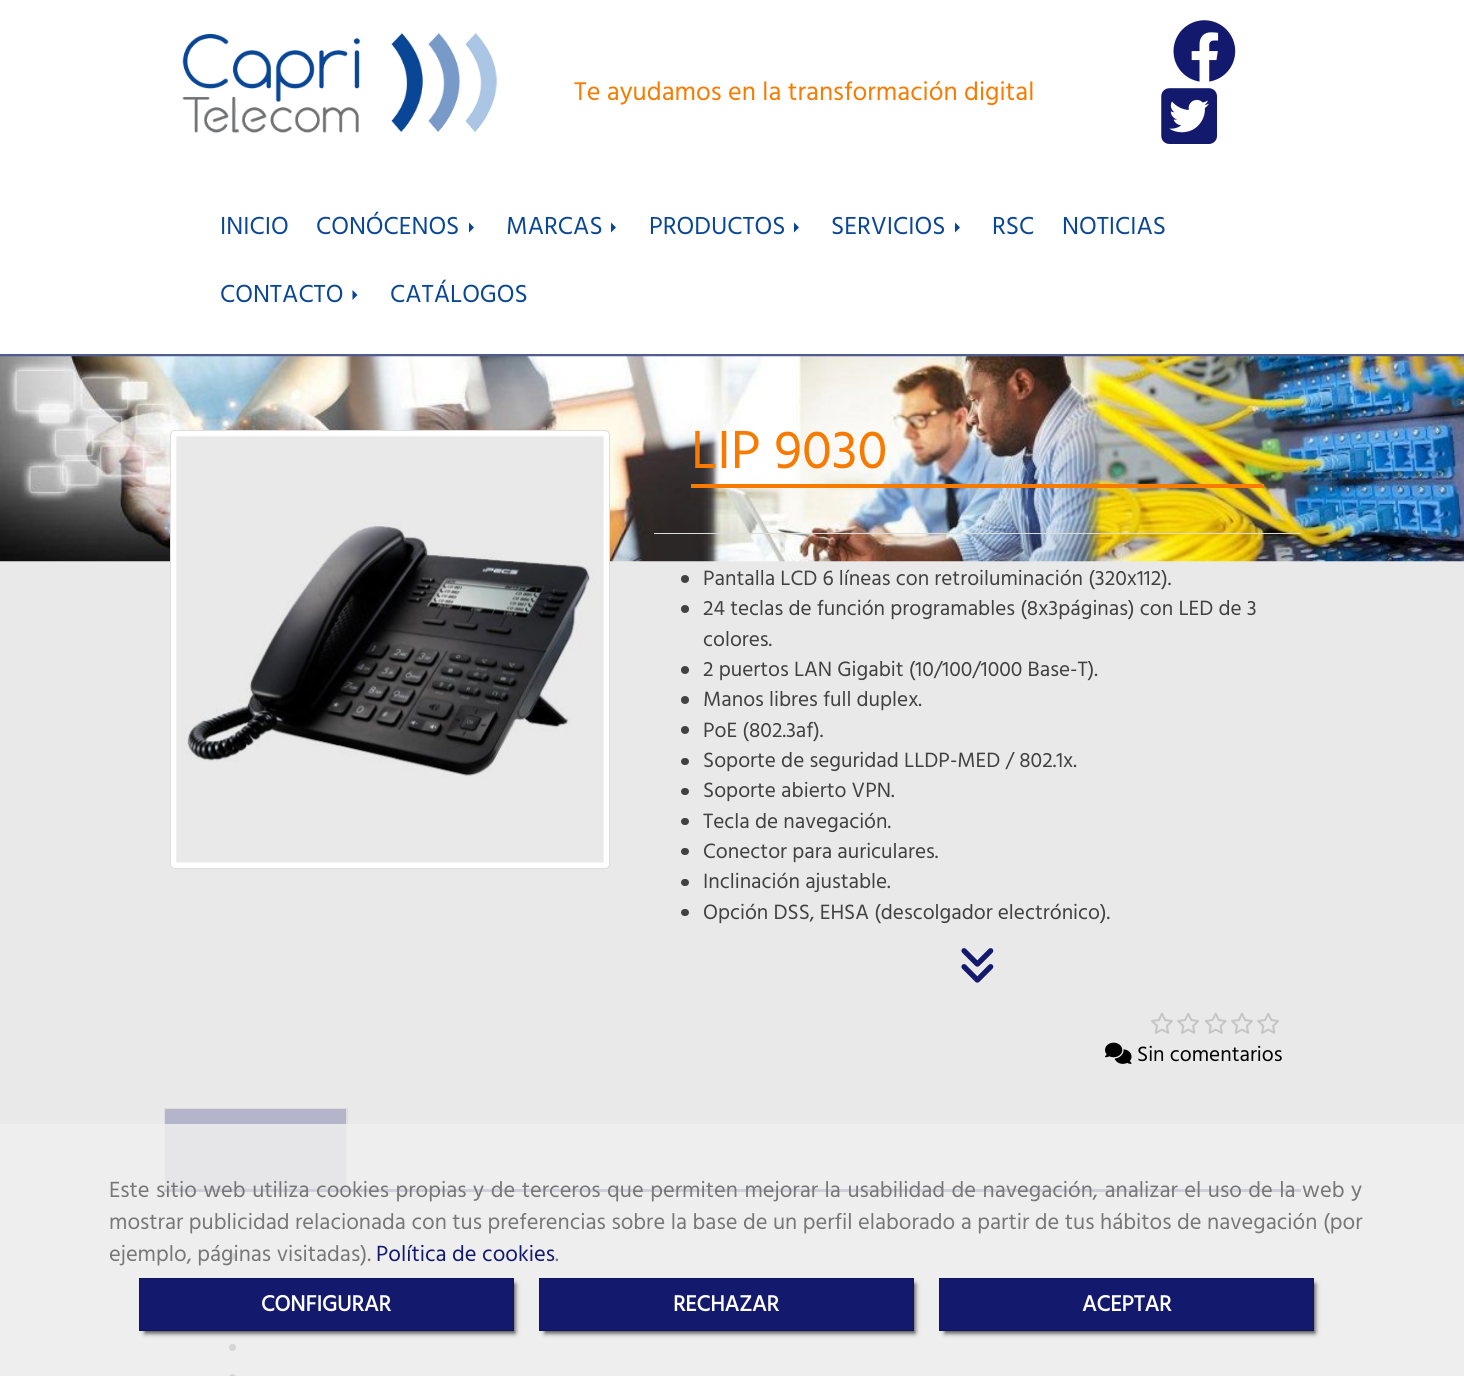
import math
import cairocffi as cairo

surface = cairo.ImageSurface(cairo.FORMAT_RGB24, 1464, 1376)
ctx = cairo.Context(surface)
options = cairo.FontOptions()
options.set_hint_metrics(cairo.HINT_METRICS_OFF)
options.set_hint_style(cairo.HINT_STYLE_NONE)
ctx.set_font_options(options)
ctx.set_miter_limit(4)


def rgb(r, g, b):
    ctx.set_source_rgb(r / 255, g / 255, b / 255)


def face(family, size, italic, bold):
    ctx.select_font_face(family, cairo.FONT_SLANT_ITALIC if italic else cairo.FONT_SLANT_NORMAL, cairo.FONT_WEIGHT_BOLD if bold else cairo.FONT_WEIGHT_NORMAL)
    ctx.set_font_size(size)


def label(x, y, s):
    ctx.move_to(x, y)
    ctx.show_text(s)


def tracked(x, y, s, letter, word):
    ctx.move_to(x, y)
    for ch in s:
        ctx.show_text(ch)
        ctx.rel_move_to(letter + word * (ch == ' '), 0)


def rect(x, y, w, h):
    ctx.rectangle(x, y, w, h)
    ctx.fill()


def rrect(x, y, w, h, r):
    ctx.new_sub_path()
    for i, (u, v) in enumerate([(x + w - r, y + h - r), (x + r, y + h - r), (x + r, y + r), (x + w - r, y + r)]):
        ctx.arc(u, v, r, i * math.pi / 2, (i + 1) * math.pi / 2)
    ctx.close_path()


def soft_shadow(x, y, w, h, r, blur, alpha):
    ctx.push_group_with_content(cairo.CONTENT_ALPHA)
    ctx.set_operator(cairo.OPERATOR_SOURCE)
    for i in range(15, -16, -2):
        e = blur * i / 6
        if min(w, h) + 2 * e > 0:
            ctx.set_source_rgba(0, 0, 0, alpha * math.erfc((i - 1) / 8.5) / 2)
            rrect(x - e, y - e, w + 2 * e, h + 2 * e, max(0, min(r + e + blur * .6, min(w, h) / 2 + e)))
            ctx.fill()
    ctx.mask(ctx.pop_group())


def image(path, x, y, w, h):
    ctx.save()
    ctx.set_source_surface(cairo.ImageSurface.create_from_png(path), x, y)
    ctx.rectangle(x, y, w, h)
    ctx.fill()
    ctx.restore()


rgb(233, 233, 233)
ctx.paint()
rgb(180, 181, 202)
rect(165, 1109, 181, 80)
rgb(255, 255, 255)
rect(0, 0, 1464, 354)
rgb(78, 92, 143)
rect(0, 354, 1464, 3)
image('image0.png', 182, 32, 316, 101)
face('Hind Madurai', 26.25, 0, 0)
rgb(247, 123, 0)
label(574, 100, 'Te ayudamos en la transformación digital')
image('image1.png', 1173, 20, 63, 62)
image('image2.png', 1161, 88, 57, 56)
face('Hind Madurai', 25.25, 0, 0)
rgb(9, 70, 150)
label(220, 234, 'INICIO')
label(316, 234, 'CONÓCENOS')
ctx.new_path()
ctx.move_to(469, 232.5)
ctx.line_to(469, 222.5)
ctx.line_to(474, 227.5)
ctx.close_path()
ctx.fill()
label(506, 234, 'MARCAS')
ctx.new_path()
ctx.move_to(611, 232.5)
ctx.line_to(611, 222.5)
ctx.line_to(616, 227.5)
ctx.close_path()
ctx.fill()
label(649, 234, 'PRODUCTOS')
ctx.new_path()
ctx.move_to(794, 232.5)
ctx.line_to(794, 222.5)
ctx.line_to(799, 227.5)
ctx.close_path()
ctx.fill()
label(831, 234, 'SERVICIOS')
ctx.new_path()
ctx.move_to(955, 232.5)
ctx.line_to(955, 222.5)
ctx.line_to(960, 227.5)
ctx.close_path()
ctx.fill()
label(992, 234, 'RSC')
label(1062, 234, 'NOTICIAS')
label(220, 302, 'CONTACTO')
ctx.new_path()
ctx.move_to(352.5, 300)
ctx.line_to(352.5, 290)
ctx.line_to(357.5, 295)
ctx.close_path()
ctx.fill()
label(390, 302, 'CATÁLOGOS')
image('image3.png', 0, 356, 1464, 206)
rgb(255, 255, 255)
rrect(170.5, 430.5, 439, 438, 4.5)
ctx.fill_preserve()
rgb(221, 221, 221)
ctx.set_line_width(1)
ctx.stroke()
image('image4.png', 176, 436, 428, 427)
rgb(247, 123, 0)
rect(691, 484, 573, 4)
face('Hind Madurai', 55, 0, 0)
label(691, 468, 'LIP 9030')
rgb(221, 221, 221)
rect(654, 533, 647, 1)
rgb(65, 65, 65)
ctx.new_path()
ctx.arc(685, 579, 4, 0, 2 * math.pi)
ctx.fill()
face('Hind Madurai', 21.25, 0, 0)
label(703, 585, 'Pantalla LCD 6 líneas con retroiluminación (320x112).')
ctx.new_path()
ctx.arc(685, 609, 4, 0, 2 * math.pi)
ctx.fill()
label(703, 615, '24 teclas de función programables (8x3páginas) con LED de 3')
label(703, 646, 'colores.')
ctx.new_path()
ctx.arc(685, 670, 4, 0, 2 * math.pi)
ctx.fill()
label(703, 676, '2 puertos LAN Gigabit (10/100/1000 Base-T).')
ctx.new_path()
ctx.arc(685, 700, 4, 0, 2 * math.pi)
ctx.fill()
label(703, 706, 'Manos libres full duplex.')
ctx.new_path()
ctx.arc(685, 730, 4, 0, 2 * math.pi)
ctx.fill()
label(703, 737, 'PoE (802.3af).')
rrect(681, 758, 8, 7, 3.5)
ctx.fill()
label(703, 767, 'Soporte de seguridad LLDP-MED / 802.1x.')
rrect(681, 788, 8, 7, 3.5)
ctx.fill()
label(703, 797, 'Soporte abierto VPN.')
rrect(681, 818, 8, 7, 3.5)
ctx.fill()
label(703, 828, 'Tecla de navegación.')
rrect(681, 848, 8, 7, 3.5)
ctx.fill()
label(703, 858, 'Conector para auriculares.')
rrect(681, 879, 8, 7, 3.5)
ctx.fill()
label(703, 888, 'Inclinación ajustable.')
rrect(681, 909, 8, 7, 3.5)
ctx.fill()
label(703, 919, 'Opción DSS, EHSA (descolgador electrónico).')
image('image5.png', 961, 948, 33, 35)
image('image6.png', 1151, 1012, 22, 22)
image('image7.png', 1177, 1012, 22, 22)
image('image8.png', 1205, 1012, 22, 22)
image('image6.png', 1231, 1012, 22, 22)
image('image7.png', 1257, 1012, 22, 22)
image('image9.png', 1105, 1042, 27, 22)
rgb(0, 0, 0)
label(1137, 1061, 'Sin comentarios')
rgb(19, 26, 110)
rect(164, 1189, 1137, 3)
rgb(221, 221, 221)
rect(164, 1108, 184, 1)
ctx.new_path()
ctx.move_to(348, 1108)
ctx.line_to(348, 1190)
ctx.line_to(346, 1189)
ctx.line_to(346, 1109)
ctx.close_path()
ctx.fill()
ctx.new_path()
ctx.move_to(164, 1190)
ctx.line_to(164, 1108)
ctx.line_to(165, 1109)
ctx.line_to(165, 1189)
ctx.close_path()
ctx.fill()
rgb(65, 65, 65)
ctx.arc(232.5, 1256.5, 3.5, 0, 2 * math.pi)
ctx.fill()
ctx.arc(232.5, 1347.5, 3.5, 0, 2 * math.pi)
ctx.fill()
rrect(229, 1374, 7, 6, 3.5)
ctx.fill()
ctx.set_source_rgba(0.933, 0.933, 0.933, 0.85)
rect(0, 1124, 1464, 252)
face('Hind Madurai', 22.5, 0, 0)
rgb(119, 119, 119)
tracked(109, 1197, 'Este sitio web utiliza cookies propias y de terceros que permiten mejorar la usabilidad de navegación, analizar el uso de la web y', 0, 1)
label(109, 1229, 'mostrar publicidad relacionada con tus preferencias sobre la base de un perfil elaborado a partir de tus hábitos de navegación (por')
label(109, 1261, 'ejemplo, páginas visitadas).')
rgb(19, 26, 110)
label(376, 1261, 'Política de cookies')
rgb(119, 119, 119)
label(555, 1261, '.')
rgb(0, 0, 0)
soft_shadow(145, 1284, 370, 49, 0, 2.5, 0.75)
rgb(19, 26, 110)
ctx.rectangle(139.5, 1278.5, 374, 52)
ctx.fill_preserve()
rgb(15, 21, 88)
ctx.stroke()
face('Hind Madurai', 22.5, 0, 1)
rgb(255, 255, 255)
label(261, 1311, 'CONFIGURAR')
rgb(0, 0, 0)
soft_shadow(545, 1284, 370, 49, 0, 2.5, 0.75)
rgb(19, 26, 110)
ctx.rectangle(539.5, 1278.5, 374, 52)
ctx.fill_preserve()
rgb(15, 21, 88)
ctx.stroke()
rgb(255, 255, 255)
label(673, 1311, 'RECHAZAR')
rgb(0, 0, 0)
soft_shadow(945, 1284, 370, 49, 0, 2.5, 0.75)
rgb(19, 26, 110)
ctx.rectangle(939.5, 1278.5, 374, 52)
ctx.fill_preserve()
rgb(15, 21, 88)
ctx.stroke()
rgb(255, 255, 255)
label(1082, 1311, 'ACEPTAR')
surface.write_to_png('render.png')
